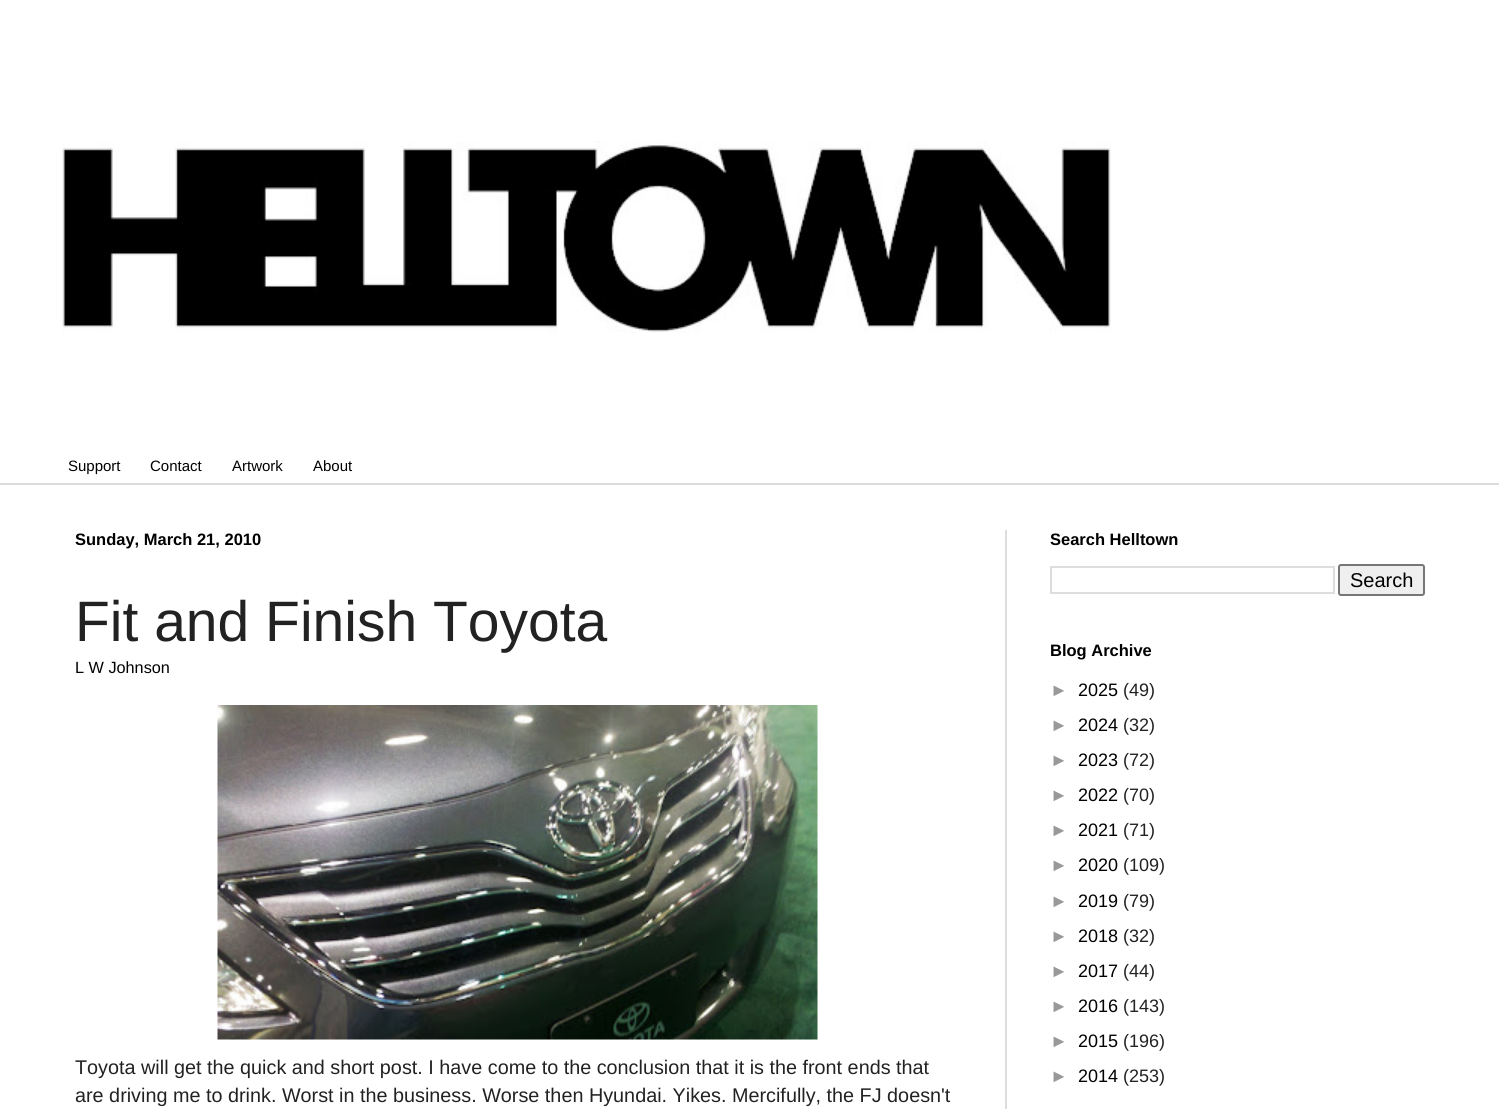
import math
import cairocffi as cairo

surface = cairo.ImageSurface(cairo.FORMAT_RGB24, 1499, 1109)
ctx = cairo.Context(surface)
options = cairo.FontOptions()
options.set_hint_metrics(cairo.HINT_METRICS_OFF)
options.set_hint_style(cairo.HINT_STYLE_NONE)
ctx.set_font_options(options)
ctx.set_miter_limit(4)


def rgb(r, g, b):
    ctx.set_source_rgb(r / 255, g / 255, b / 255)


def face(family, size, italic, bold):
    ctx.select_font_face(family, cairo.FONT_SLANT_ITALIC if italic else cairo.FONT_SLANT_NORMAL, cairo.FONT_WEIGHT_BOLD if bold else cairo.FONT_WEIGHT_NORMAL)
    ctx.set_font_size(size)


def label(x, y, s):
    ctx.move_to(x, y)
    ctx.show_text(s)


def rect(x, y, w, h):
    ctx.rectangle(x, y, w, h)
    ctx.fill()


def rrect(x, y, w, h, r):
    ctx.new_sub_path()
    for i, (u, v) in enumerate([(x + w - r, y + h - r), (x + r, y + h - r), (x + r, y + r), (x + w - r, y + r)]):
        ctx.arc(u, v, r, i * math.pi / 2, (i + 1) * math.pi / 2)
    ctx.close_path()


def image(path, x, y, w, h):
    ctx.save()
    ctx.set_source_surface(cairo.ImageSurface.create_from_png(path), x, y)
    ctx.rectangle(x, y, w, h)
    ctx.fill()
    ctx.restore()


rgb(255, 255, 255)
ctx.paint()
image('image0.png', 62, 141, 1049, 192)
face('Liberation Sans', 15, 0, 0)
rgb(0, 0, 0)
label(68, 471, 'Support')
label(150, 471, 'Contact')
label(232, 471, 'Artwork')
label(313, 471, 'About')
rgb(221, 221, 221)
rect(0, 483, 1499, 2)
rect(1005, 530, 2, 579)
face('Liberation Sans', 16.5, 0, 1)
rgb(0, 0, 0)
label(75, 545, 'Sunday, March 21, 2010')
face('Liberation Sans', 57, 0, 0)
rgb(34, 34, 34)
label(75, 641, 'Fit and Finish Toyota')
face('Liberation Sans', 16.25, 0, 0)
rgb(0, 0, 0)
label(75, 673, 'L W Johnson')
image('image1.png', 217, 705, 601, 335)
face('Liberation Sans', 19.8, 0, 0)
rgb(34, 34, 34)
label(75, 1074, 'Toyota will get the quick and short post. I have come to the conclusion that it is the front ends that')
label(75, 1102, 'are driving me to drink. Worst in the business. Worse then Hyundai. Yikes. Mercifully, the FJ doesn\'t')
face('Liberation Sans', 16.5, 0, 1)
rgb(0, 0, 0)
label(1050, 545, 'Search Helltown')
ctx.rectangle(1051, 567, 283, 26)
rgb(221, 221, 221)
ctx.stroke()
rgb(239, 239, 239)
rrect(1339, 565, 85, 30, 2)
ctx.fill_preserve()
rgb(118, 118, 118)
ctx.stroke()
face('Liberation Sans', 20, 0, 0)
rgb(0, 0, 0)
label(1350, 587, 'Search')
face('Liberation Sans', 16.5, 0, 1)
label(1050, 656, 'Blog Archive')
face('Liberation Sans', 18, 0, 0)
rgb(153, 153, 153)
label(1050, 696, '►')
rgb(0, 0, 0)
label(1078, 696, '2025')
rgb(34, 34, 34)
label(1123, 696, '(49)')
rgb(153, 153, 153)
label(1050, 731, '►')
rgb(0, 0, 0)
label(1078, 731, '2024')
rgb(34, 34, 34)
label(1123, 731, '(32)')
rgb(153, 153, 153)
label(1050, 766, '►')
rgb(0, 0, 0)
label(1078, 766, '2023')
rgb(34, 34, 34)
label(1123, 766, '(72)')
rgb(153, 153, 153)
label(1050, 801, '►')
rgb(0, 0, 0)
label(1078, 801, '2022')
rgb(34, 34, 34)
label(1123, 801, '(70)')
rgb(153, 153, 153)
label(1050, 836, '►')
rgb(0, 0, 0)
label(1078, 836, '2021')
rgb(34, 34, 34)
label(1123, 836, '(71)')
rgb(153, 153, 153)
label(1050, 871, '►')
rgb(0, 0, 0)
label(1078, 871, '2020')
rgb(34, 34, 34)
label(1123, 871, '(109)')
rgb(153, 153, 153)
label(1050, 907, '►')
rgb(0, 0, 0)
label(1078, 907, '2019')
rgb(34, 34, 34)
label(1123, 907, '(79)')
rgb(153, 153, 153)
label(1050, 942, '►')
rgb(0, 0, 0)
label(1078, 942, '2018')
rgb(34, 34, 34)
label(1123, 942, '(32)')
rgb(153, 153, 153)
label(1050, 977, '►')
rgb(0, 0, 0)
label(1078, 977, '2017')
rgb(34, 34, 34)
label(1123, 977, '(44)')
rgb(153, 153, 153)
label(1050, 1012, '►')
rgb(0, 0, 0)
label(1078, 1012, '2016')
rgb(34, 34, 34)
label(1123, 1012, '(143)')
rgb(153, 153, 153)
label(1050, 1047, '►')
rgb(0, 0, 0)
label(1078, 1047, '2015')
rgb(34, 34, 34)
label(1123, 1047, '(196)')
rgb(153, 153, 153)
label(1050, 1082, '►')
rgb(0, 0, 0)
label(1078, 1082, '2014')
rgb(34, 34, 34)
label(1123, 1082, '(253)')
surface.write_to_png('render.png')
